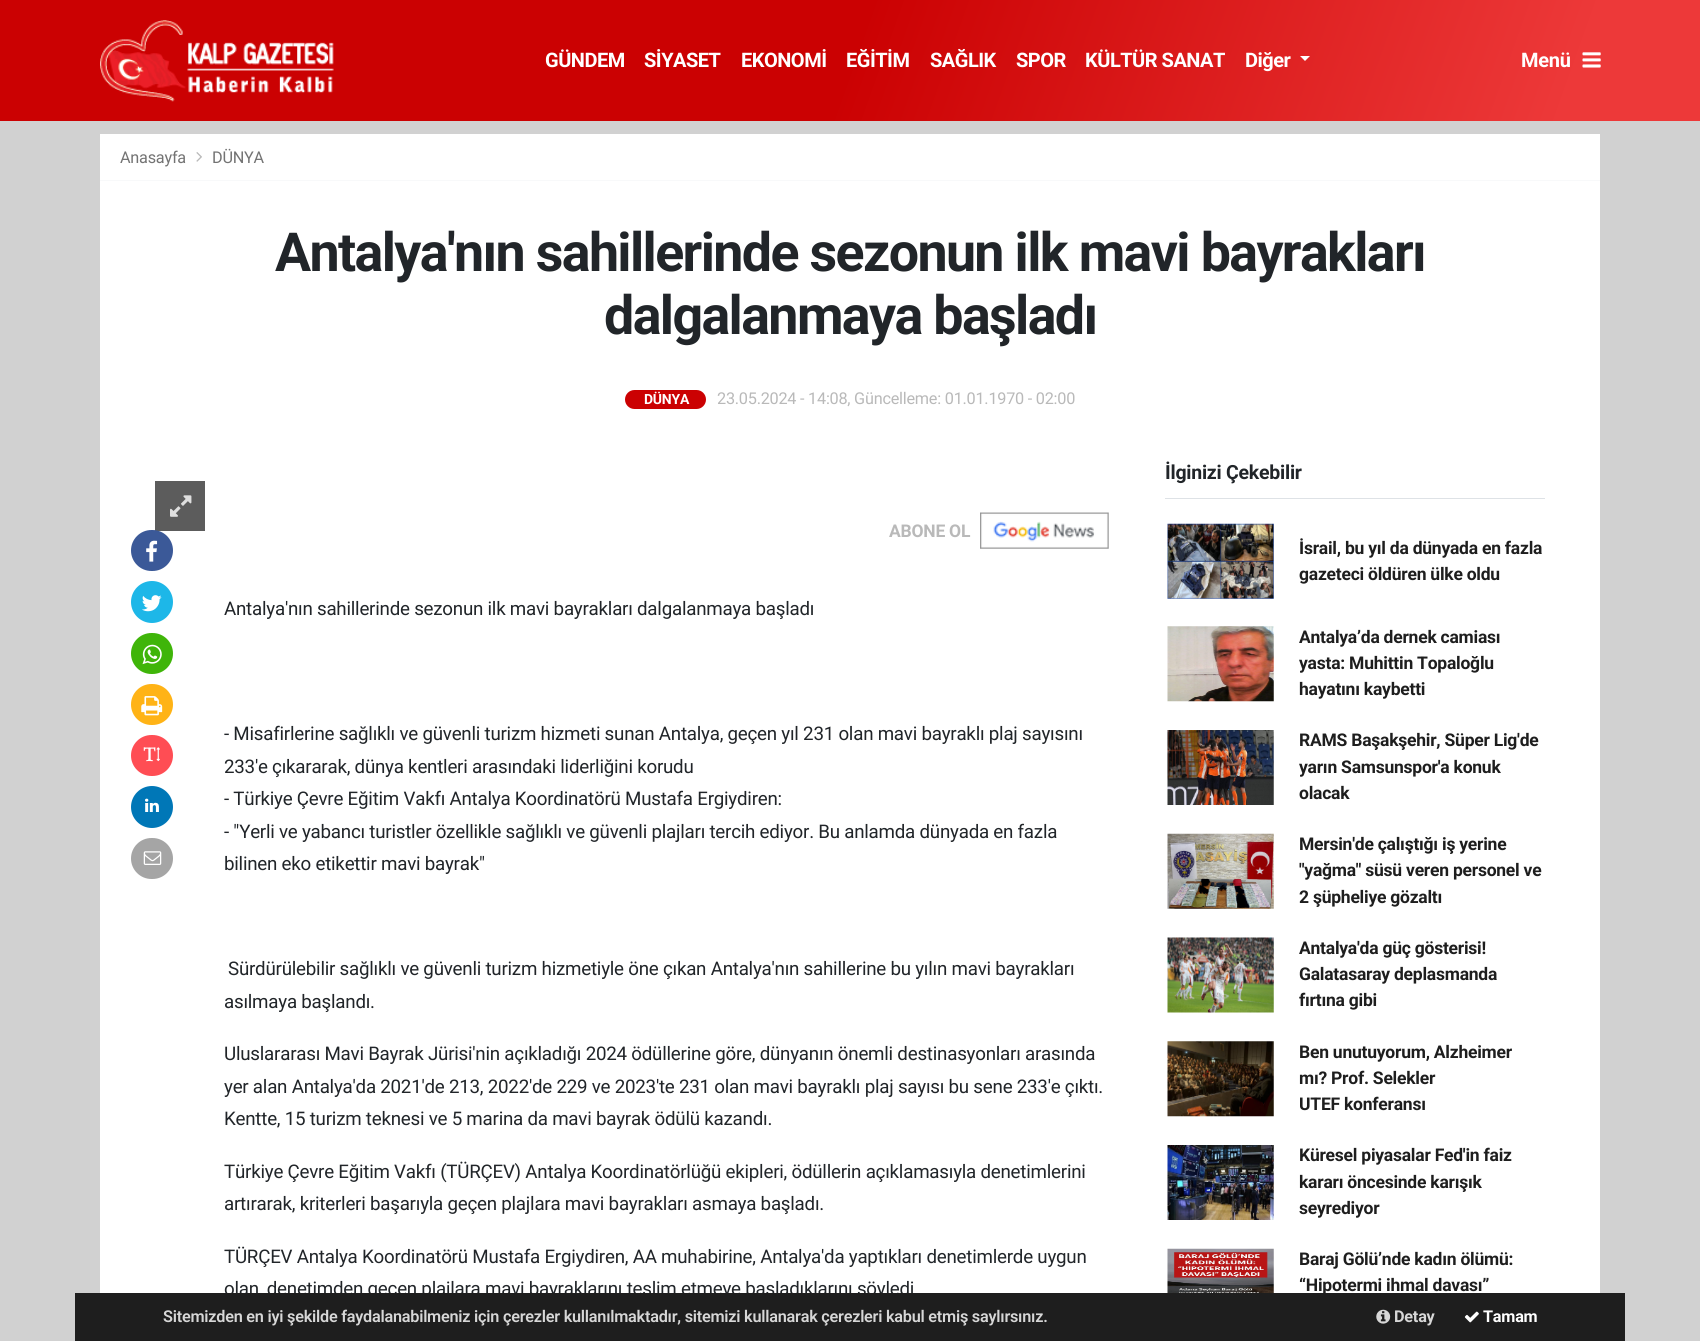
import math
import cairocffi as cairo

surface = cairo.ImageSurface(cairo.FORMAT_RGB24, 1700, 1341)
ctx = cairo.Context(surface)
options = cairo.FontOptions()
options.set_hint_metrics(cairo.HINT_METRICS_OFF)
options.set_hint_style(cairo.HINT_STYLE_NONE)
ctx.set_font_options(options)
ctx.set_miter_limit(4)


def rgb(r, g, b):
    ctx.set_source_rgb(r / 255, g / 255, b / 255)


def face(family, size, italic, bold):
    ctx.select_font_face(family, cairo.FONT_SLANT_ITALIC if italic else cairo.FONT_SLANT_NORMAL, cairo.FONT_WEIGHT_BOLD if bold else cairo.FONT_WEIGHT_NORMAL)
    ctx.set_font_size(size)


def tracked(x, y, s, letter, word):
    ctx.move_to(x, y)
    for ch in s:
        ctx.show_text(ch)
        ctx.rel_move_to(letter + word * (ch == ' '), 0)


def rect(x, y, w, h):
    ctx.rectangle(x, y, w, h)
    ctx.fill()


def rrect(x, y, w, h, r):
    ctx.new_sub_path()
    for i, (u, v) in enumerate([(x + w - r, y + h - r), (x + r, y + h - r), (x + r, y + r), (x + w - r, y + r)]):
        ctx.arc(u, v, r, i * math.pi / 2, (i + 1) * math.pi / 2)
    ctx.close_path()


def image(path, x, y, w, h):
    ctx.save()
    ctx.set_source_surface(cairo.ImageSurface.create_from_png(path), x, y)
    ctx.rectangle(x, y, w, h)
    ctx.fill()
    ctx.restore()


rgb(209, 209, 209)
ctx.paint()
gradient = cairo.LinearGradient(76, -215, 1624, 336)
gradient.add_color_stop_rgba(0.5, 0.796, 0.004, 0.008, 1)
gradient.add_color_stop_rgba(0.92, 0.929, 0.224, 0.224, 1)
ctx.set_source(gradient)
rect(0, 0, 1700, 121)
image('image0.png', 100, 20, 234, 82)
face('Roboto', 20, 0, 1)
rgb(255, 255, 255)
tracked(545, 67, 'GÜNDEM', -0.5, 0)
tracked(644, 67, 'SİYASET', -0.5, 0)
tracked(741, 67, 'EKONOMİ', -0.5, 0)
tracked(846, 67, 'EĞİTİM', -0.5, 0)
tracked(930, 67, 'SAĞLIK', -0.5, 0)
tracked(1016, 67, 'SPOR', -0.5, 0)
tracked(1085, 67, 'KÜLTÜR SANAT', -0.5, 0)
tracked(1245, 67, 'Diğer', -0.5, 0)
ctx.new_path()
ctx.move_to(1300, 56)
ctx.line_to(1310, 56)
ctx.line_to(1305, 61)
ctx.close_path()
ctx.fill()
tracked(1521, 67, 'Menü', -0.24, 0)
image('image1.png', 1582, 52, 19, 16)
rect(100, 134, 1500, 46)
rgb(248, 249, 250)
rect(100, 180, 1500, 1)
face('Roboto', 16.25, 0, 0)
rgb(115, 115, 115)
tracked(120, 163, 'Anasayfa', -0.24, 0)
image('image2.png', 196, 152, 6, 10)
tracked(212, 163, 'DÜNYA', -0.24, 0)
rgb(255, 255, 255)
rect(100, 181, 1500, 1112)
face('Roboto', 53.75, 0, 1)
rgb(33, 37, 41)
tracked(275, 271, 'Antalya\'nın sahillerinde sezonun ilk mavi bayrakları', -1.62, 0)
tracked(604, 334, 'dalgalanmaya başladı', -1.62, 0)
rgb(203, 1, 2)
rrect(625, 390, 81, 19, 9.5)
ctx.fill()
face('Roboto', 14, 0, 1)
rgb(255, 255, 255)
tracked(644, 404, 'DÜNYA', -0.24, 0)
face('Roboto', 16.25, 0, 0)
rgb(185, 185, 185)
tracked(717, 404, '23.05.2024 - 14:08, Güncelleme: 01.01.1970 - 02:00', -0.24, 0)
rgb(92, 92, 92)
rect(155, 481, 50, 50)
image('image3.png', 170, 495, 22, 22)
rgb(59, 89, 152)
rrect(131, 530, 42, 41, 20.5)
ctx.fill()
image('image4.png', 146, 540, 12, 22)
rgb(29, 183, 232)
ctx.arc(152, 602, 21, 0, 2 * math.pi)
ctx.fill()
image('image5.png', 142, 595, 20, 17)
rgb(63, 181, 9)
rrect(131, 633, 42, 41, 20.5)
ctx.fill()
image('image6.png', 142, 644, 20, 21)
rgb(255, 179, 22)
rrect(131, 684, 42, 41, 20.5)
ctx.fill()
image('image7.png', 141, 696, 22, 20)
rgb(255, 77, 84)
rrect(131, 735, 42, 41, 20.5)
ctx.fill()
image('image8.png', 143, 747, 17, 15)
rgb(0, 119, 183)
ctx.arc(152, 807, 21, 0, 2 * math.pi)
ctx.fill()
image('image9.png', 145, 798, 14, 14)
rgb(165, 165, 165)
rrect(131, 838, 42, 41, 20.5)
ctx.fill()
image('image10.png', 143, 851, 19, 14)
face('Roboto', 17.5, 0, 1)
rgb(185, 185, 185)
tracked(889, 537, 'ABONE OL', -0.24, 0)
image('image11.png', 980, 512, 129, 37)
face('Roboto', 18.75, 0, 0)
rgb(33, 37, 41)
tracked(224, 615, 'Antalya\'nın sahillerinde sezonun ilk mavi bayrakları dalgalanmaya başladı', -0.24, 0)
tracked(224, 740, '- Misafirlerine sağlıklı ve güvenli turizm hizmeti sunan Antalya, geçen yıl 231 olan mavi bayraklı plaj sayısını', -0.24, 0)
tracked(224, 773, '233\'e çıkararak, dünya kentleri arasındaki liderliğini korudu', -0.24, 0)
tracked(224, 805, '- Türkiye Çevre Eğitim Vakfı Antalya Koordinatörü Mustafa Ergiydiren:', -0.24, 0)
tracked(224, 838, '- "Yerli ve yabancı turistler özellikle sağlıklı ve güvenli plajları tercih ediyor. Bu anlamda dünyada en fazla', -0.24, 0)
tracked(224, 870, 'bilinen eko etikettir mavi bayrak"', -0.24, 0)
tracked(228, 975, 'Sürdürülebilir sağlıklı ve güvenli turizm hizmetiyle öne çıkan Antalya\'nın sahillerine bu yılın mavi bayrakları', -0.24, 0)
tracked(224, 1008, 'asılmaya başlandı.', -0.24, 0)
tracked(224, 1060, 'Uluslararası Mavi Bayrak Jürisi\'nin açıkladığı 2024 ödüllerine göre, dünyanın önemli destinasyonları arasında', -0.24, 0)
tracked(224, 1093, 'yer alan Antalya\'da 2021\'de 213, 2022\'de 229 ve 2023\'te 231 olan mavi bayraklı plaj sayısı bu sene 233\'e çıktı.', -0.24, 0)
tracked(224, 1125, 'Kentte, 15 turizm teknesi ve 5 marina da mavi bayrak ödülü kazandı.', -0.24, 0)
tracked(224, 1178, 'Türkiye Çevre Eğitim Vakfı (TÜRÇEV) Antalya Koordinatörlüğü ekipleri, ödüllerin açıklamasıyla denetimlerini', -0.24, 0)
tracked(224, 1210, 'artırarak, kriterleri başarıyla geçen plajlara mavi bayrakları asmaya başladı.', -0.24, 0)
tracked(224, 1263, 'TÜRÇEV Antalya Koordinatörü Mustafa Ergiydiren, AA muhabirine, Antalya\'da yaptıkları denetimlerde uygun', -0.24, 0)
tracked(224, 1295, 'olan, denetimden geçen plajlara mavi bayraklarını teslim etmeye başladıklarını söyledi', -0.24, 0)
rgb(222, 226, 230)
rect(1165, 498, 380, 1)
face('Roboto', 19.5, 0, 1)
rgb(33, 37, 41)
tracked(1165, 479, 'İlginizi Çekebilir', -0.24, 0)
image('image12.png', 1167, 523, 107, 76)
face('Roboto', 17.5, 0, 1)
rgb(30, 30, 30)
tracked(1299, 554, 'İsrail, bu yıl da dünyada en fazla', -0.24, 0)
tracked(1299, 580, 'gazeteci öldüren ülke oldu', -0.24, 0)
image('image13.png', 1167, 626, 107, 76)
tracked(1299, 643, 'Antalya’da dernek camiası', -0.24, 0)
tracked(1299, 669, 'yasta: Muhittin Topaloğlu', -0.24, 0)
tracked(1299, 695, 'hayatını kaybetti', -0.24, 0)
image('image14.png', 1167, 730, 107, 75)
tracked(1299, 746, 'RAMS Başakşehir, Süper Lig\'de', -0.24, 0)
tracked(1299, 773, 'yarın Samsunspor\'a konuk', -0.24, 0)
tracked(1299, 799, 'olacak', -0.24, 0)
image('image15.png', 1167, 833, 107, 76)
tracked(1299, 850, 'Mersin\'de çalıştığı iş yerine', -0.24, 0)
tracked(1299, 876, '"yağma" süsü veren personel ve', -0.24, 0)
tracked(1299, 903, '2 şüpheliye gözaltı', -0.24, 0)
image('image16.png', 1167, 937, 107, 76)
tracked(1299, 954, 'Antalya\'da güç gösterisi!', -0.24, 0)
tracked(1299, 980, 'Galatasaray deplasmanda', -0.24, 0)
tracked(1299, 1006, 'fırtına gibi', -0.24, 0)
image('image17.png', 1167, 1041, 107, 76)
tracked(1299, 1058, 'Ben unutuyorum, Alzheimer', -0.24, 0)
tracked(1299, 1084, 'mı? Prof. Selekler', -0.24, 0)
tracked(1299, 1110, 'UTEF konferansı', -0.24, 0)
image('image18.png', 1167, 1145, 107, 75)
tracked(1299, 1161, 'Küresel piyasalar Fed\'in faiz', -0.24, 0)
tracked(1299, 1188, 'kararı öncesinde karışık', -0.24, 0)
tracked(1299, 1214, 'seyrediyor', -0.24, 0)
image('image19.png', 1167, 1248, 107, 45)
tracked(1299, 1265, 'Baraj Gölü’nde kadın ölümü:', -0.24, 0)
tracked(1299, 1291, '“Hipotermi ihmal davası”', -0.24, 0)
rect(75, 1293, 1550, 48)
face('Roboto SemiBold', 16.25, 0, 0)
rgb(215, 215, 215)
tracked(163, 1322, 'Sitemizden en iyi şekilde faydalanabilmeniz için çerezler kullanılmaktadır, sitemizi kullanarak çerezleri kabul etmiş saylırsınız.', -0.24, 0)
image('image20.png', 1376, 1309, 15, 15)
face('Roboto', 16.25, 0, 1)
tracked(1394, 1322, 'Detay', -0.24, 0)
image('image21.png', 1464, 1311, 15, 12)
rgb(255, 255, 255)
tracked(1483, 1322, 'Tamam', -0.24, 0)
surface.write_to_png('render.png')
